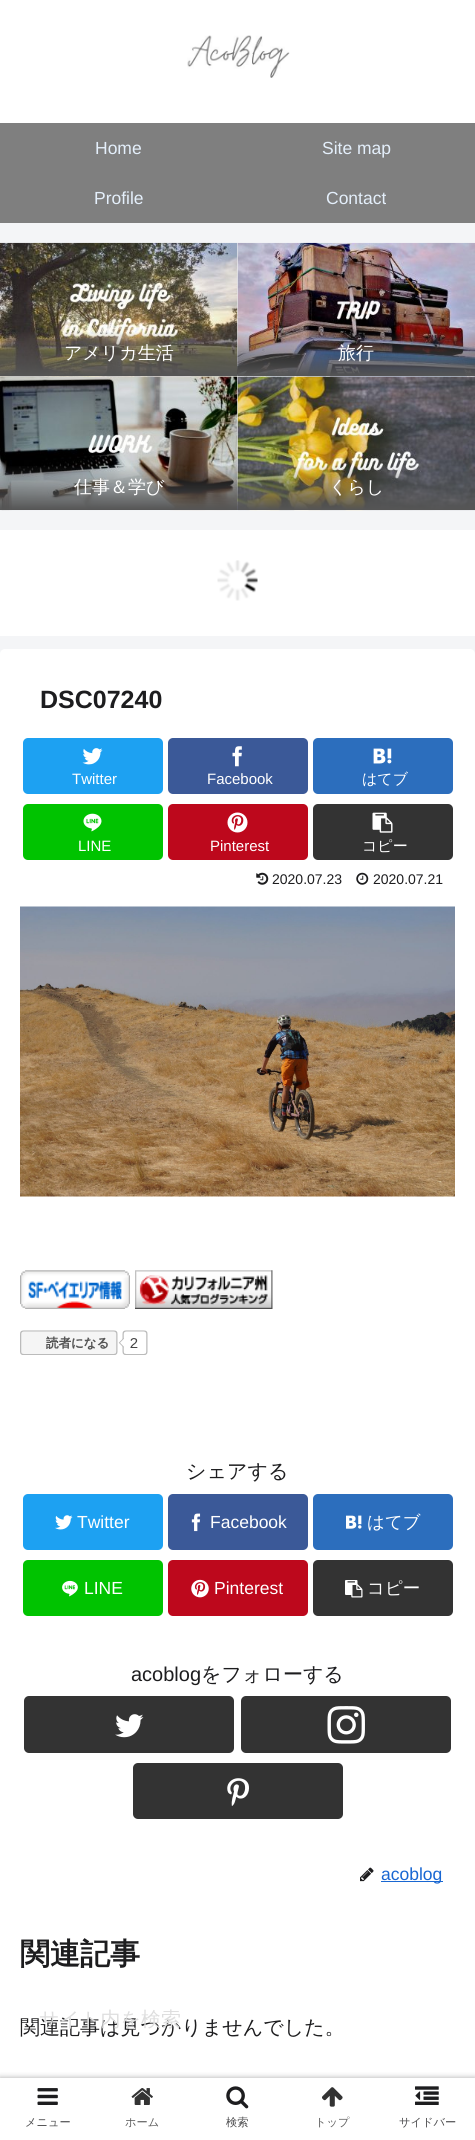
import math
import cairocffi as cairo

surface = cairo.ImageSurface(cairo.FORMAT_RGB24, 475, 2140)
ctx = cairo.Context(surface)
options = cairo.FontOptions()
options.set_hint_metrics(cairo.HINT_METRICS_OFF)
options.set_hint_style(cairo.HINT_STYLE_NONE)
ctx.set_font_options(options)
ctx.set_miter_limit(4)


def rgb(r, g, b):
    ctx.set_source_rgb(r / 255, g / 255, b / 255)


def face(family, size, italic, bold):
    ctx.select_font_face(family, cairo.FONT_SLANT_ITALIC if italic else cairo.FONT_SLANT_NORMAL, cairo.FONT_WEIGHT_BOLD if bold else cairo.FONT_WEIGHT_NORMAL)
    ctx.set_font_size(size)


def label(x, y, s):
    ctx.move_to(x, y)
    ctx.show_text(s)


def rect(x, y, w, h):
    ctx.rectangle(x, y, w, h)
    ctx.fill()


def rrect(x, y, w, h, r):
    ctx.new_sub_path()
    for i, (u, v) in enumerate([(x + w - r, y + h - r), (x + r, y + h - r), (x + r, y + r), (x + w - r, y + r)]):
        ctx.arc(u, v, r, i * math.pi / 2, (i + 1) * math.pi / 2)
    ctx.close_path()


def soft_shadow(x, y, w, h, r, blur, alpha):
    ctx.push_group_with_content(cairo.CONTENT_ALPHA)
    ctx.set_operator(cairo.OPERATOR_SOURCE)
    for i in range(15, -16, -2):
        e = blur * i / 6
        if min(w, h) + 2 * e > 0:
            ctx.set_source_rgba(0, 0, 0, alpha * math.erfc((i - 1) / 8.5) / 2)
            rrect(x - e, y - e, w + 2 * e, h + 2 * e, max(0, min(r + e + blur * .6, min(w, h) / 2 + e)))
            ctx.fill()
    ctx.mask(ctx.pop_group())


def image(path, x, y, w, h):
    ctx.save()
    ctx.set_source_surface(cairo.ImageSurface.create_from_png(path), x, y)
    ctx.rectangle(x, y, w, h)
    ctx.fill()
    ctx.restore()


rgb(244, 245, 247)
ctx.paint()
rgb(255, 255, 255)
rect(0, 0, 475, 123)
image('image0.png', 187, 35, 103, 43)
rgb(127, 127, 127)
rect(0, 123, 475, 100)
face('Liberation Sans', 17.5, 0, 0)
rgb(228, 239, 251)
label(95, 154, 'Home')
label(322, 154, 'Site map')
label(94, 204, 'Profile')
label(326, 204, 'Contact')
image('image1.png', 0, 242, 238, 135)
gradient = cairo.LinearGradient(119, 331, 119, 376)
gradient.add_color_stop_rgba(0, 0.333, 0.333, 0.333, 0)
gradient.add_color_stop_rgba(1, 0.333, 0.333, 0.333, 1)
ctx.set_source(gradient)
rect(0, 332, 238, 44)
face('WenQuanYi Zen Hei Medium', 18, 0, 0)
rgb(255, 255, 255)
label(64, 359, 'アメリカ生活')
image('image2.png', 237, 242, 238, 135)
label(338, 359, '旅行')
image('image3.png', 0, 376, 238, 135)
gradient = cairo.LinearGradient(119, 465, 119, 510)
gradient.add_color_stop_rgba(0, 0.333, 0.333, 0.333, 0)
gradient.add_color_stop_rgba(1, 0.333, 0.333, 0.333, 1)
ctx.set_source(gradient)
rect(0, 466, 238, 44)
rgb(255, 255, 255)
label(74, 493, '仕事＆学び')
image('image4.png', 237, 376, 238, 135)
label(329, 493, 'くらし')
rect(0, 530, 475, 106)
image('image5.png', 217, 560, 41, 41)
rrect(0, 649, 475, 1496, 5)
ctx.fill()
face('Liberation Sans', 25, 0, 1)
rgb(29, 29, 31)
label(40, 708, 'DSC07240')
rgb(29, 161, 242)
rrect(23, 738, 140, 56, 5)
ctx.fill()
image('image6.png', 82, 748, 21, 17)
face('Liberation Sans', 15, 0, 0)
rgb(255, 255, 255)
label(72, 784, 'Twitter')
rgb(59, 89, 152)
rrect(168, 738, 140, 56, 5)
ctx.fill()
image('image7.png', 232, 746, 10, 21)
rgb(255, 255, 255)
label(207, 784, 'Facebook')
rgb(44, 110, 189)
rrect(313, 738, 140, 56, 5)
ctx.fill()
image('image8.png', 373, 748, 19, 16)
face('WenQuanYi Zen Hei Medium', 15, 0, 0)
rgb(255, 255, 255)
label(362, 784, 'はてブ')
rgb(0, 195, 0)
rrect(23, 804, 140, 56, 5)
ctx.fill()
image('image9.png', 83, 813, 19, 19)
face('Liberation Sans', 15, 0, 0)
rgb(255, 255, 255)
label(78, 851, 'LINE')
rgb(189, 8, 28)
rrect(168, 804, 140, 56, 5)
ctx.fill()
image('image10.png', 227, 812, 21, 21)
rgb(255, 255, 255)
label(210, 851, 'Pinterest')
rgb(51, 51, 51)
rrect(313, 804, 140, 56, 5)
ctx.fill()
image('image11.png', 372, 812, 21, 21)
face('WenQuanYi Zen Hei Medium', 15, 0, 0)
rgb(255, 255, 255)
label(362, 851, 'コピー')
image('image12.png', 256, 872, 13, 13)
face('Liberation Sans', 14, 0, 0)
rgb(29, 29, 31)
label(272, 884, '2020.07.23')
image('image13.png', 356, 872, 13, 13)
label(373, 884, '2020.07.21')
image('image14.png', 20, 906, 435, 291)
image('image15.png', 20, 1270, 110, 39)
image('image16.png', 135, 1270, 138, 39)
image('image17.png', 20, 1330, 128, 25)
face('WenQuanYi Zen Hei Medium', 20, 0, 0)
label(186, 1478, 'シェアする')
rgb(29, 161, 242)
rrect(23, 1494, 140, 56, 5)
ctx.fill()
image('image18.png', 55, 1515, 18, 15)
face('Liberation Sans', 17.5, 0, 0)
rgb(255, 255, 255)
label(77, 1528, 'Twitter')
rgb(59, 89, 152)
rrect(168, 1494, 140, 56, 5)
ctx.fill()
image('image19.png', 191, 1513, 10, 19)
rgb(255, 255, 255)
label(210, 1528, 'Facebook')
rgb(44, 110, 189)
rrect(313, 1494, 140, 56, 5)
ctx.fill()
image('image20.png', 346, 1515, 16, 14)
face('WenQuanYi Zen Hei Medium', 17.5, 0, 0)
rgb(255, 255, 255)
label(367, 1528, 'はてブ')
rgb(0, 195, 0)
rrect(23, 1560, 140, 56, 5)
ctx.fill()
image('image21.png', 62, 1580, 16, 17)
face('Liberation Sans', 17.5, 0, 0)
rgb(255, 255, 255)
label(84, 1594, 'LINE')
rgb(189, 8, 28)
rrect(168, 1560, 140, 56, 5)
ctx.fill()
image('image22.png', 191, 1579, 18, 19)
rgb(255, 255, 255)
label(214, 1594, 'Pinterest')
rgb(51, 51, 51)
rrect(313, 1560, 140, 56, 5)
ctx.fill()
image('image23.png', 345, 1580, 18, 18)
face('WenQuanYi Zen Hei Medium', 17.5, 0, 0)
rgb(255, 255, 255)
label(367, 1594, 'コピー')
face('Liberation Sans', 20, 0, 0)
rgb(29, 29, 31)
label(131, 1681, 'acoblog')
face('WenQuanYi Zen Hei Medium', 20, 0, 0)
label(201, 1681, 'をフォローする')
rgb(51, 51, 51)
rrect(24, 1696, 210, 57, 5)
ctx.fill()
image('image24.png', 115, 1714, 29, 24)
rrect(241, 1696, 210, 57, 5)
ctx.fill()
image('image25.png', 327, 1706, 38, 38)
rrect(133, 1763, 210, 56, 5)
ctx.fill()
image('image26.png', 227, 1778, 22, 28)
image('image27.png', 360, 1867, 14, 15)
rgb(25, 103, 210)
rect(381, 1881, 62, 1)
face('Liberation Sans', 17.5, 0, 0)
label(381, 1880, 'acoblog')
face('WenQuanYi Zen Hei', 30, 0, 1)
rgb(29, 29, 31)
label(20, 1964, '関連記事')
face('WenQuanYi Zen Hei Medium', 20, 0, 0)
label(20, 2034, '関連記事は見つかりませんでした。')
ctx.save()
ctx.rectangle(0, 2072, 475, 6)
ctx.clip()
rgb(169, 169, 169)
soft_shadow(0, 2078, 475, 62, 0, 3, 1)
ctx.restore()
rgb(222, 222, 222)
label(39, 2026, 'サイト内を検索')
image('image28.png', 226, 2086, 23, 23)
face('WenQuanYi Zen Hei Medium', 11.25, 0, 0)
rgb(74, 74, 76)
label(226, 2126, '検索')
image('image29.png', 322, 2087, 21, 20)
rgb(92, 92, 92)
label(315, 2126, 'トップ')
image('image30.png', 415, 2086, 24, 19)
rgb(74, 74, 76)
label(399, 2126, 'サイドバー')
image('image31.png', 37, 2088, 21, 17)
label(25, 2126, 'メニュー')
image('image32.png', 131, 2088, 22, 17)
rgb(92, 92, 92)
label(125, 2126, 'ホーム')
surface.write_to_png('render.png')
